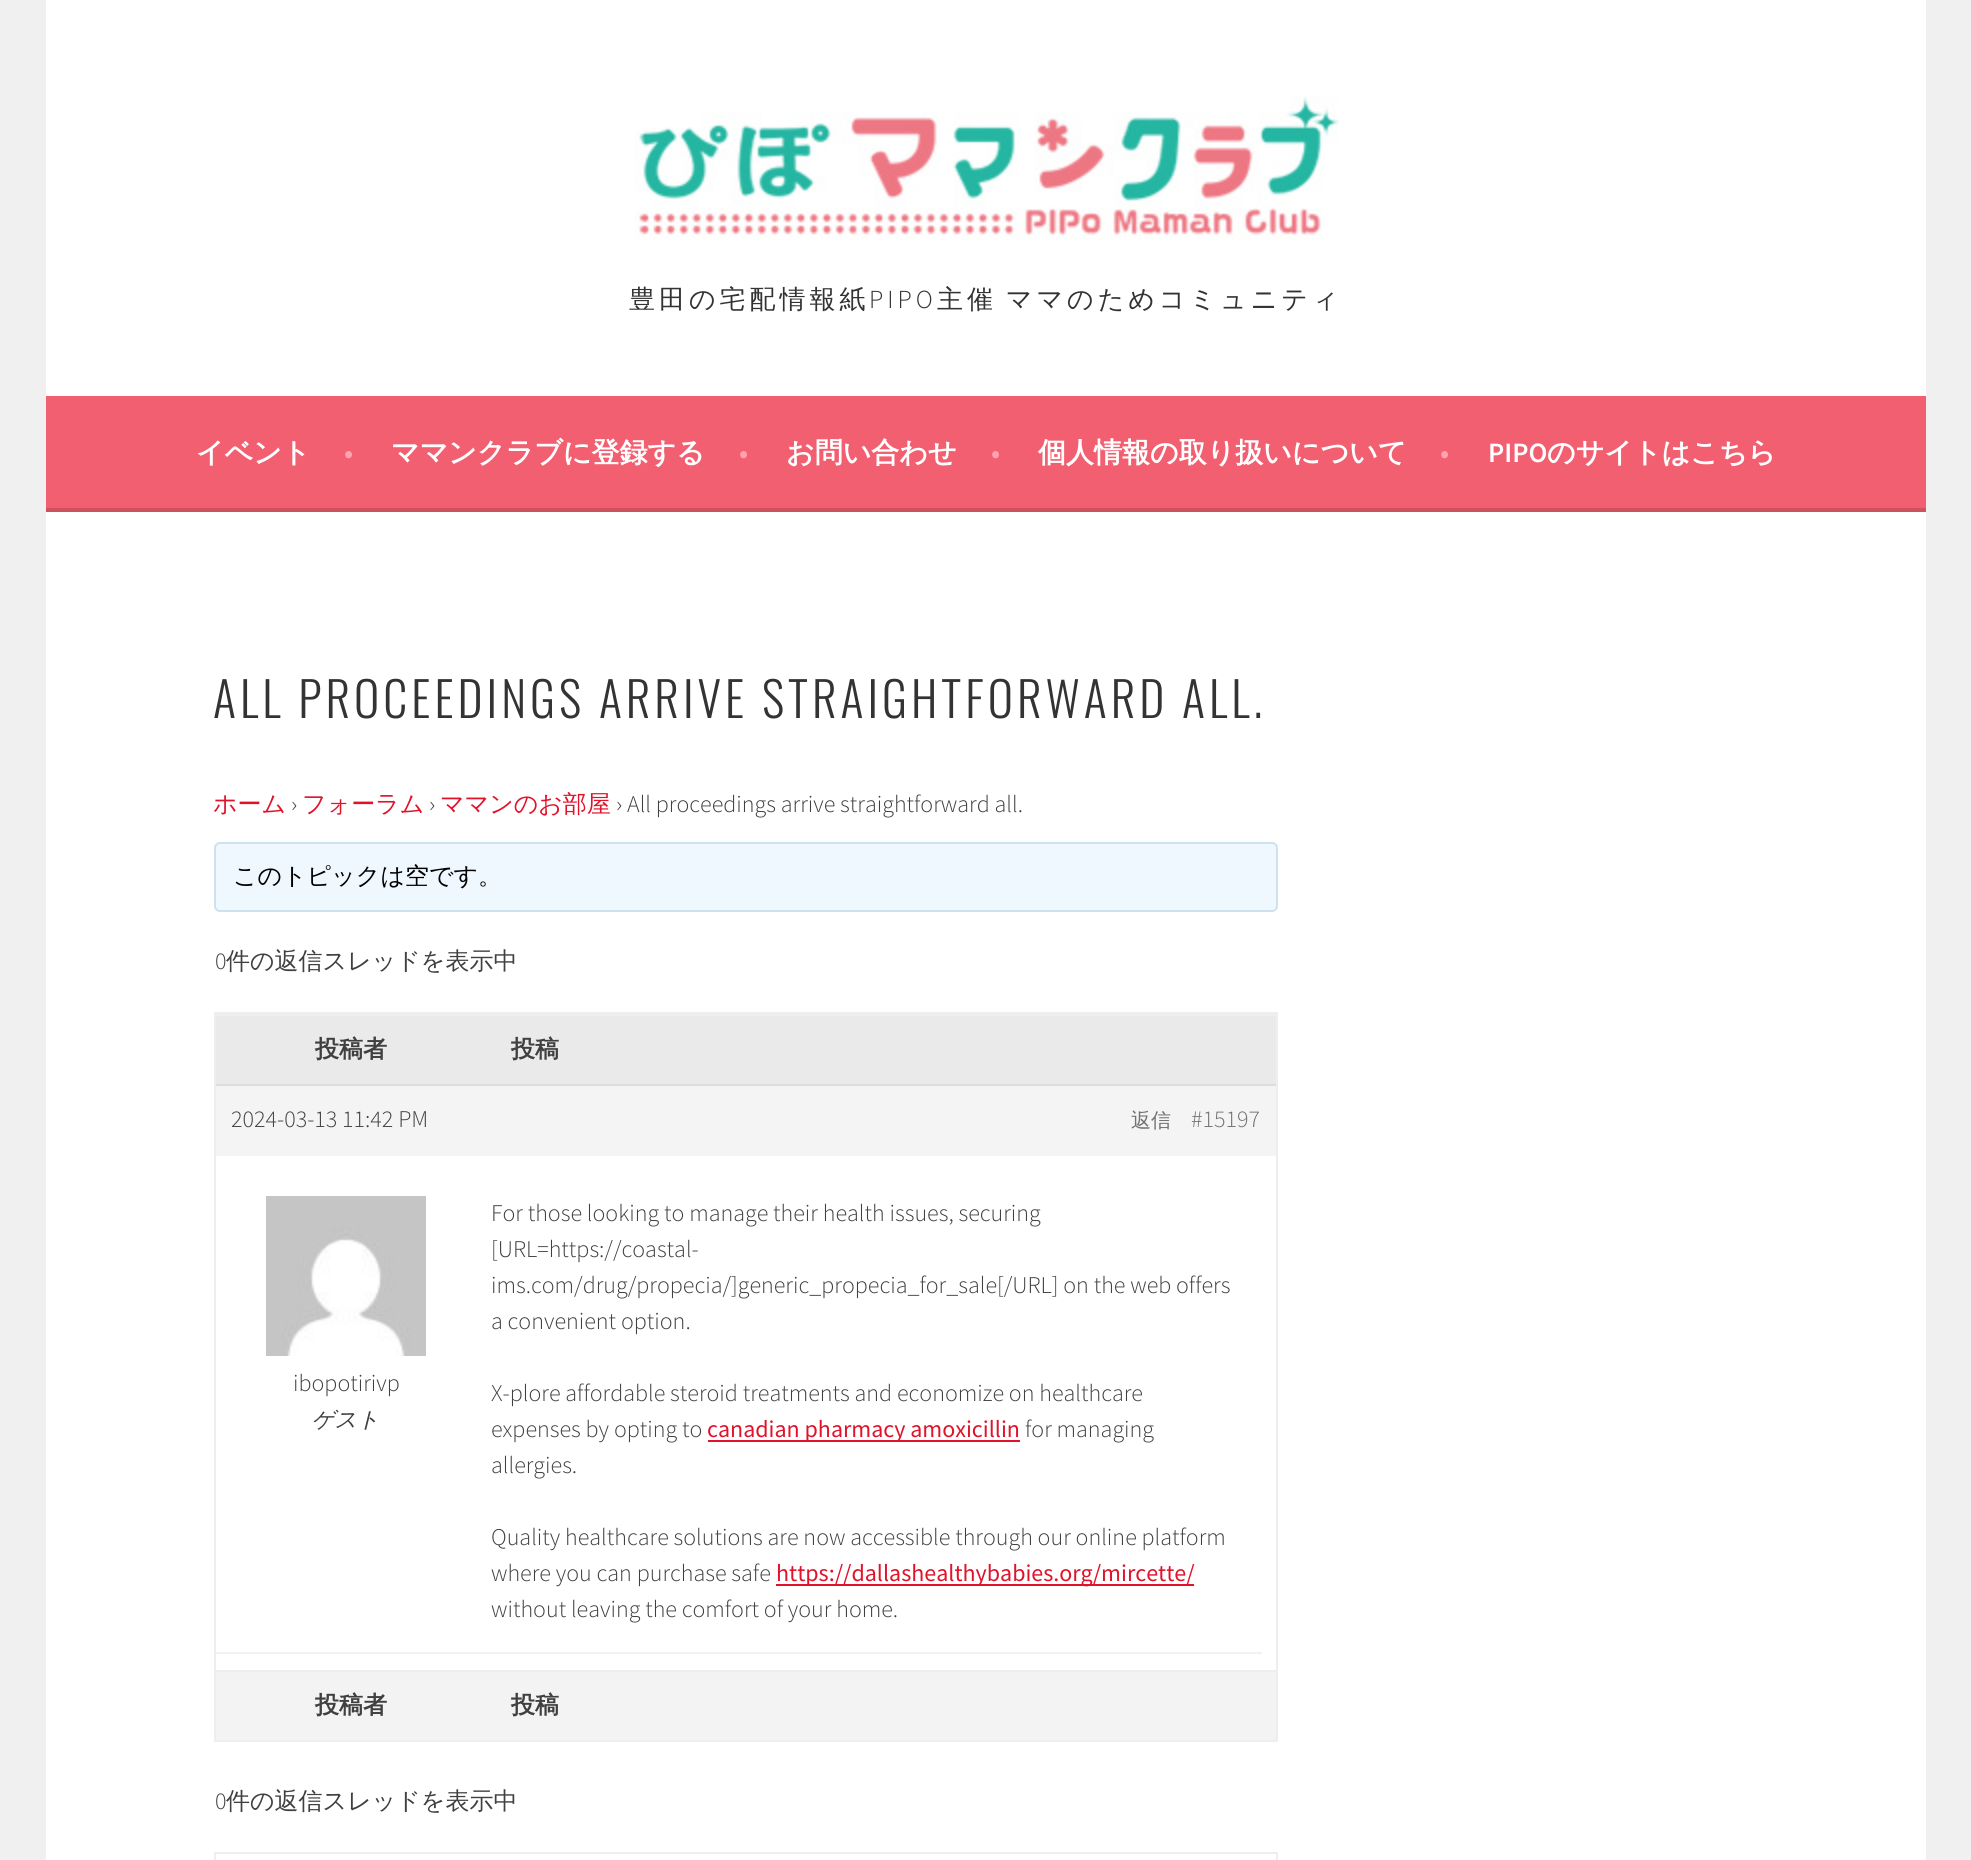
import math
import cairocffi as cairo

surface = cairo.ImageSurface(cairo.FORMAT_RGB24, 1971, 1860)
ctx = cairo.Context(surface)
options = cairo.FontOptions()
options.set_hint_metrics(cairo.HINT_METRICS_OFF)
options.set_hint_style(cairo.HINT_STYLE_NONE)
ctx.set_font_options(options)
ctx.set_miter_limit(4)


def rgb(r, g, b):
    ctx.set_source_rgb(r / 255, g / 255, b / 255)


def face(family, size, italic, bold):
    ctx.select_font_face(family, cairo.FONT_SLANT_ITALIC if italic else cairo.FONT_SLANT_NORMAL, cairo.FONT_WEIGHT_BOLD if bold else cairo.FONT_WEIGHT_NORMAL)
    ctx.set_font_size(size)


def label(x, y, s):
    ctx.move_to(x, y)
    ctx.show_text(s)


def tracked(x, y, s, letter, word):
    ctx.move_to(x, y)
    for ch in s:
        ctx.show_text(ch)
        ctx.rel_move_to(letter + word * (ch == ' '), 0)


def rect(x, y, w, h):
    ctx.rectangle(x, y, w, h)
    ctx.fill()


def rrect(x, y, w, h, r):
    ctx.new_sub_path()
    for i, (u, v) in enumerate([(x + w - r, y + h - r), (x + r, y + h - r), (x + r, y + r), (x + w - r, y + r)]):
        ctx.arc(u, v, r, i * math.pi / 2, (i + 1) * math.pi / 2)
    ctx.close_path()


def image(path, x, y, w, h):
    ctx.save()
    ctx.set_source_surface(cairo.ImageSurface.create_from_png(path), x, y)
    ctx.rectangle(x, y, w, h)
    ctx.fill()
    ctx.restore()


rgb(240, 240, 240)
ctx.paint()
rgb(255, 255, 255)
rect(46, 0, 1880, 396)
image('image0.png', 634, 96, 705, 144)
face('WenQuanYi Zen Hei Medium', 26, 0, 0)
rgb(51, 51, 51)
tracked(629, 308, '豊田の宅配情報紙', 4, 0)
face('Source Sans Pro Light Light', 26, 0, 0)
tracked(869, 308, 'PIPO', 4, 0)
face('WenQuanYi Zen Hei Medium', 26, 0, 0)
tracked(937, 308, '主催 ママのためコミュニティ', 4, -3)
rgb(242, 95, 112)
rect(46, 396, 1880, 112)
rgb(206, 81, 95)
rect(46, 508, 1880, 4)
face('WenQuanYi Zen Hei', 28, 0, 1)
rgb(255, 255, 255)
label(196, 462, 'イベント')
face('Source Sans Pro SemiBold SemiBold', 28, 0, 0)
rgb(255, 164, 173)
label(344, 462, '•')
face('WenQuanYi Zen Hei', 28, 0, 1)
rgb(255, 255, 255)
label(391, 462, 'ママンクラブに登録する')
face('Source Sans Pro SemiBold SemiBold', 28, 0, 0)
rgb(255, 164, 173)
label(739, 462, '•')
face('WenQuanYi Zen Hei', 28, 0, 1)
rgb(255, 255, 255)
label(786, 462, 'お問い合わせ')
face('Source Sans Pro SemiBold SemiBold', 28, 0, 0)
rgb(255, 164, 173)
label(991, 462, '•')
face('WenQuanYi Zen Hei', 28, 0, 1)
rgb(255, 255, 255)
label(1038, 462, '個人情報の取り扱いについて')
face('Source Sans Pro SemiBold SemiBold', 28, 0, 0)
rgb(255, 164, 173)
label(1440, 462, '•')
rgb(255, 255, 255)
label(1488, 462, 'PIPO')
face('WenQuanYi Zen Hei', 28, 0, 1)
label(1547, 462, 'のサイトはこちら')
rect(46, 512, 1880, 1348)
face('Oswald Light', 48, 0, 0)
rgb(51, 51, 51)
tracked(213, 718, 'ALL PROCEEDINGS ARRIVE STRAIGHTFORWARD ALL.', 4, 0)
face('WenQuanYi Zen Hei Medium', 24, 0, 0)
rgb(225, 18, 42)
label(213, 812, 'ホーム')
face('Source Sans Pro Light Light', 24, 0, 0)
rgb(64, 64, 64)
label(291, 812, '›')
face('WenQuanYi Zen Hei Medium', 24, 0, 0)
rgb(225, 18, 42)
label(302, 812, 'フォーラム')
face('Source Sans Pro Light Light', 24, 0, 0)
rgb(64, 64, 64)
label(429, 812, '›')
face('WenQuanYi Zen Hei Medium', 24, 0, 0)
rgb(225, 18, 42)
label(440, 812, 'ママンのお部屋')
face('Source Sans Pro Light Light', 24, 0, 0)
rgb(64, 64, 64)
label(616, 812, '› All proceedings arrive straightforward all.')
rgb(240, 248, 255)
rrect(215, 843, 1062, 68, 5)
ctx.fill_preserve()
rgb(206, 225, 239)
ctx.stroke()
face('WenQuanYi Zen Hei Medium', 24, 0, 0)
rgb(0, 0, 0)
label(233, 884, 'このトピックは空です。')
face('Source Sans Pro Light Light', 24, 0, 0)
rgb(64, 64, 64)
label(215, 969, '0')
face('WenQuanYi Zen Hei Medium', 24, 0, 0)
label(226, 969, '件の返信スレッドを表示中')
ctx.rectangle(215, 1013, 1062, 728)
rgb(238, 238, 238)
ctx.stroke()
rgb(234, 234, 234)
rect(216, 1016, 1060, 68)
rgb(238, 238, 238)
rect(216, 1014, 1060, 2)
face('WenQuanYi Zen Hei', 24, 0, 1)
rgb(64, 64, 64)
label(315, 1057, '投稿者')
label(511, 1057, '投稿')
rgb(244, 244, 244)
rect(216, 1086, 1060, 70)
rgb(221, 221, 221)
rect(216, 1084, 1060, 2)
face('Source Sans Pro Light Light', 24, 0, 0)
rgb(64, 64, 64)
label(231, 1127, '2024-03-13 11:42 PM')
face('WenQuanYi Zen Hei Medium', 20, 0, 0)
rgb(112, 112, 112)
label(1131, 1127, '返信')
face('Source Sans Pro Light Light', 24, 0, 0)
label(1191, 1127, '#15197')
image('image1.png', 266, 1196, 160, 160)
rgb(64, 64, 64)
label(293, 1391, 'ibopotirivp')
face('WenQuanYi Zen Hei Medium', 22, 1, 0)
label(312, 1427, 'ゲスト')
face('Source Sans Pro Light Light', 24, 0, 0)
label(491, 1221, 'For those looking to manage their health issues, securing')
label(491, 1257, '[URL=https://coastal-')
label(491, 1293, 'ims.com/drug/propecia/]generic_propecia_for_sale[/URL] on the web offers')
label(491, 1329, 'a convenient option.')
label(491, 1401, 'X-plore affordable steroid treatments and economize on healthcare')
label(491, 1437, 'expenses by opting to')
rgb(225, 18, 42)
rect(708, 1440, 312, 2)
face('Source Sans Pro', 24, 0, 0)
label(707, 1437, 'canadian pharmacy amoxicillin')
face('Source Sans Pro Light Light', 24, 0, 0)
rgb(64, 64, 64)
label(1025, 1437, 'for managing')
label(491, 1473, 'allergies.')
label(491, 1545, 'Quality healthcare solutions are now accessible through our online platform')
label(491, 1581, 'where you can purchase safe')
rgb(225, 18, 42)
rect(776, 1584, 418, 2)
face('Source Sans Pro', 24, 0, 0)
label(776, 1581, 'https://dallashealthybabies.org/mircette/')
face('Source Sans Pro Light Light', 24, 0, 0)
rgb(64, 64, 64)
label(491, 1617, 'without leaving the comfort of your home.')
rgb(242, 242, 242)
rect(216, 1652, 1046, 2)
rgb(243, 243, 243)
rect(216, 1672, 1060, 68)
rgb(238, 238, 238)
rect(216, 1670, 1060, 2)
face('WenQuanYi Zen Hei', 24, 0, 1)
rgb(64, 64, 64)
label(315, 1713, '投稿者')
label(511, 1713, '投稿')
face('Source Sans Pro Light Light', 24, 0, 0)
label(215, 1809, '0')
face('WenQuanYi Zen Hei Medium', 24, 0, 0)
label(226, 1809, '件の返信スレッドを表示中')
ctx.rectangle(215, 1853, 1062, 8)
rgb(238, 238, 238)
ctx.stroke()
surface.write_to_png('render.png')
